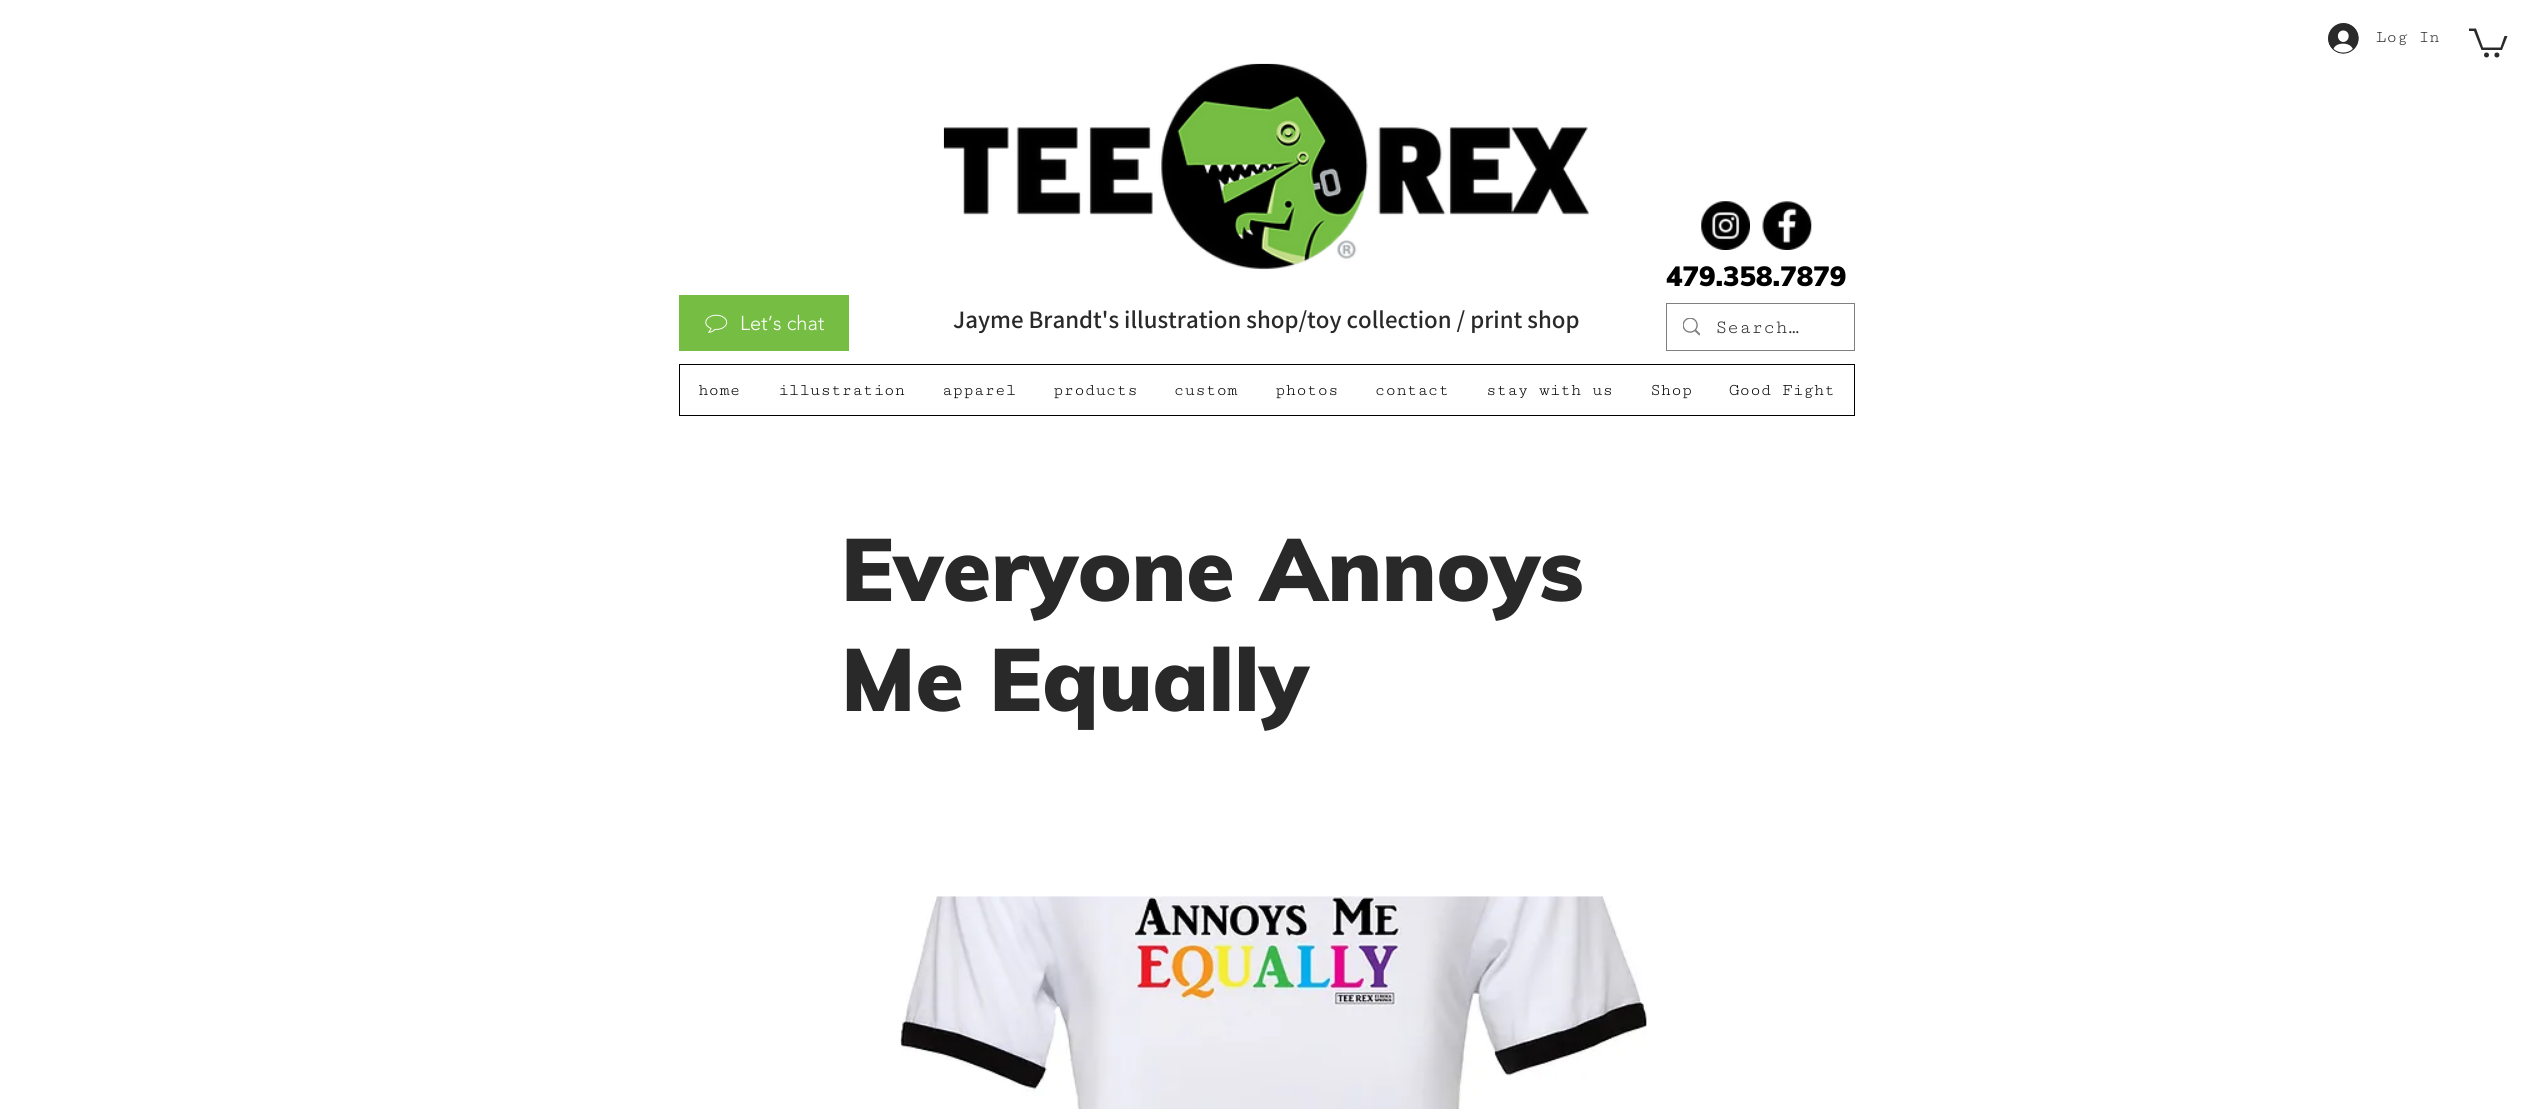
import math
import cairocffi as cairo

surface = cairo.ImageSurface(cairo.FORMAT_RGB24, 2532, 1109)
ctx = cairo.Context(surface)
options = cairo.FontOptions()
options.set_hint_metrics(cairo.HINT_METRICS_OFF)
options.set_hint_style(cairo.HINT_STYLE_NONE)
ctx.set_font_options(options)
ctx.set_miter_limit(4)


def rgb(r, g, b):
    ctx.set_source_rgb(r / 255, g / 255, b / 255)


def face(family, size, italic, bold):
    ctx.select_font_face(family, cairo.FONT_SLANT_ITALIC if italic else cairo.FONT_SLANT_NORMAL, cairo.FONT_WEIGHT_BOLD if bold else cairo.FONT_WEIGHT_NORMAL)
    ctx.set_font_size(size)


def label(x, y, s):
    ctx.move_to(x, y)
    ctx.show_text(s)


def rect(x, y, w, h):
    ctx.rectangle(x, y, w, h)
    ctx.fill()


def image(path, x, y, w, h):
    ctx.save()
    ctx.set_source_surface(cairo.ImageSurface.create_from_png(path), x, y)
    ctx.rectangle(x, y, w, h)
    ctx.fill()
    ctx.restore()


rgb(255, 255, 255)
ctx.paint()
image('image0.png', 2328, 23, 31, 31)
face('Cutive Mono', 17.5, 0, 0)
rgb(41, 41, 41)
label(2376, 42, 'Log In')
rgb(42, 42, 42)
ctx.new_path()
ctx.move_to(2507.5, 36)
ctx.line_to(2502, 50)
ctx.line_to(2481.5, 50)
ctx.line_to(2474, 31)
ctx.line_to(2469, 31)
ctx.line_to(2469, 28.5)
ctx.line_to(2476, 28.5)
ctx.line_to(2483, 47.5)
ctx.line_to(2500.5, 47.5)
ctx.line_to(2504.5, 36)
ctx.fill()
ctx.arc(2496.9, 55, 2.5, 0, 2 * math.pi)
ctx.fill()
ctx.arc(2486.5, 55, 2.5, 0, 2 * math.pi)
ctx.fill()
image('image1.png', 943, 63, 646, 207)
image('image2.png', 1701, 201, 49, 49)
image('image3.png', 1762, 201, 50, 49)
face('Muli Black', 27.5, 0, 0)
rgb(0, 0, 0)
label(1666, 286, '479.358.7879')
rgb(118, 190, 67)
rect(679, 295, 170, 56)
image('image4.png', 705, 314, 23, 19)
face('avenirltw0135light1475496 Light', 20, 0, 0)
rgb(255, 255, 255)
label(740, 330, 'Let’s chat')
face('Assistant SemiBold', 25, 0, 0)
rgb(41, 41, 41)
label(953, 328, 'Jayme Brandt\'s illustration shop/toy collection / print shop')
ctx.rectangle(1666.5, 303.5, 188, 47)
rgb(127, 127, 127)
ctx.set_line_width(1)
ctx.stroke()
image('image5.png', 1683, 318, 17, 18)
face('Cutive Mono', 20, 0, 0)
rgb(41, 41, 41)
label(1715, 333, 'Search…')
ctx.rectangle(679.5, 364.5, 1175, 51)
rgb(0, 0, 0)
ctx.stroke()
face('Cutive Mono', 17.5, 0, 0)
label(698, 395, 'home')
label(778, 395, 'illustration')
label(942, 395, 'apparel')
label(1053, 395, 'products')
label(1174, 395, 'custom')
label(1275, 395, 'photos')
label(1375, 395, 'contact')
label(1486, 395, 'stay with us')
label(1650, 395, 'Shop')
label(1729, 395, 'Good Fight')
face('Muli Black', 87.5, 0, 0)
rgb(41, 41, 41)
label(841, 601, 'Everyone Annoys')
label(841, 711, 'Me Equally')
image('image6.png', 900, 896, 747, 213)
surface.write_to_png('render.png')
